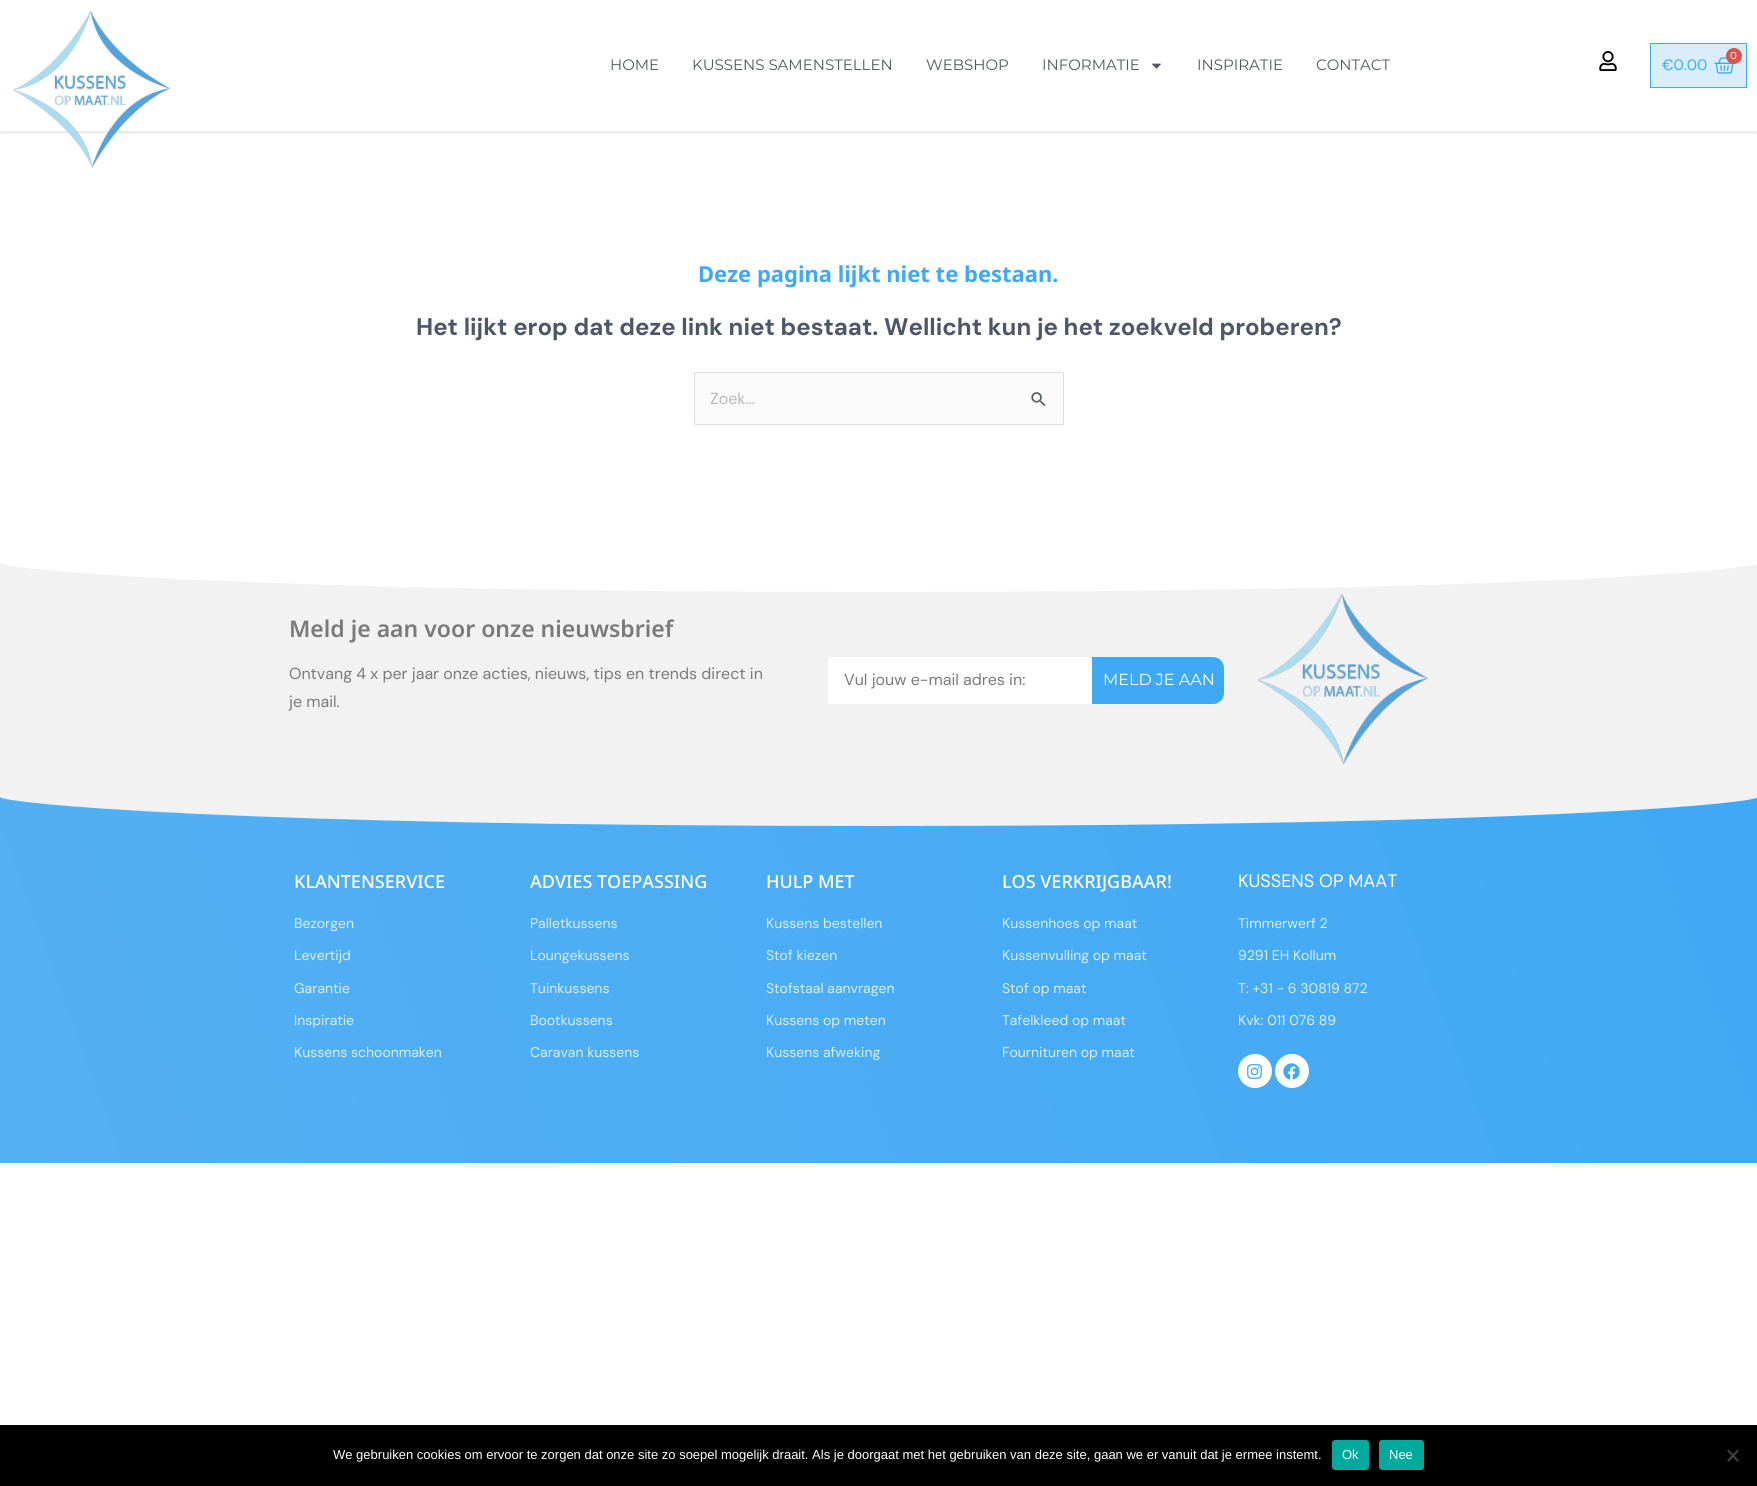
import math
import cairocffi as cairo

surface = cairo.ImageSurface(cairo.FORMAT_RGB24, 1757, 1486)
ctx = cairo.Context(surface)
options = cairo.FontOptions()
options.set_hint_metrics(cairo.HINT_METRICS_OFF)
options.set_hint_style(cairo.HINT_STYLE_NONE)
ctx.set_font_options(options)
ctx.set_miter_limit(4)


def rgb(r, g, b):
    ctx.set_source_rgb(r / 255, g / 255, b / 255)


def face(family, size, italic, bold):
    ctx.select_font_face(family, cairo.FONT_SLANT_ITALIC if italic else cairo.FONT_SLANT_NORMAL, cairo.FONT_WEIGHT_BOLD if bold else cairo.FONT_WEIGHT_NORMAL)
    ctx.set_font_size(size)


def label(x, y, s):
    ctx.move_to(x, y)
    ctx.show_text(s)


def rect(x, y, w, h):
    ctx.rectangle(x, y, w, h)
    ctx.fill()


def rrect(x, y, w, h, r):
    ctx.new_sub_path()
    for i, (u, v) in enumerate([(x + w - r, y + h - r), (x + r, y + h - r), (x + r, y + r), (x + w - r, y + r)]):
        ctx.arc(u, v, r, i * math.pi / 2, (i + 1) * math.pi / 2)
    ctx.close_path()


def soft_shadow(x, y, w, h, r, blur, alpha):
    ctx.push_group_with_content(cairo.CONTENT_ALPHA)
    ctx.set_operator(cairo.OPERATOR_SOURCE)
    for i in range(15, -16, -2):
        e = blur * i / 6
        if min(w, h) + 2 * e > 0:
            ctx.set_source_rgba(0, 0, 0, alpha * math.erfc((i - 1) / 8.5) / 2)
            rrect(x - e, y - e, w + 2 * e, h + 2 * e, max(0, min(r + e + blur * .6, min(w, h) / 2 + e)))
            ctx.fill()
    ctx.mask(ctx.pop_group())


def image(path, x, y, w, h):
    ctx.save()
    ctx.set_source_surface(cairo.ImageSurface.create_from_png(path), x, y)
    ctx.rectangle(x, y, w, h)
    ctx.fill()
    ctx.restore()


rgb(255, 255, 255)
ctx.paint()
ctx.save()
ctx.rectangle(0, 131, 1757, 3)
ctx.clip()
rgb(0, 0, 0)
soft_shadow(0, 3, 1757, 130, 0, 1.5, 0.1)
ctx.restore()
rgb(255, 255, 255)
ctx.new_path()
ctx.move_to(-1, 130)
ctx.line_to(-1, 131)
ctx.line_to(1757, 131)
ctx.line_to(1757, 130)
ctx.curve_to(1756, 124, 1534, 101, 878, 101)
ctx.curve_to(222, 101, -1, 124, -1, 130)
ctx.close_path()
ctx.fill()
image('image0.png', 12, 10, 158, 158)
face('Montserrat', 15, 0, 0)
rgb(84, 89, 95)
label(610, 70, 'HOME')
label(692, 70, 'KUSSENS SAMENSTELLEN')
label(926, 70, 'WEBSHOP')
label(1042, 70, 'INFORMATIE')
image('image1.png', 1152, 63, 9, 6)
label(1197, 70, 'INSPIRATIE')
label(1316, 70, 'CONTACT')
image('image2.png', 1599, 51, 18, 20)
rgb(217, 238, 253)
ctx.rectangle(1650.5, 43.5, 96, 44)
ctx.fill_preserve()
rgb(63, 169, 245)
ctx.set_line_width(1)
ctx.stroke()
image('image3.png', 1714, 57, 21, 17)
rgb(217, 83, 79)
ctx.arc(1734, 56, 8, 0, 2 * math.pi)
ctx.fill()
face('DM Sans', 10, 0, 0)
rgb(255, 255, 255)
label(1730, 59, '0')
face('DM Sans', 15, 0, 0)
rgb(63, 169, 245)
label(1662, 70, '€0.00')
face('Noto Sans', 22, 0, 1)
label(698, 282, 'Deze pagina lijkt niet te bestaan.')
face('DM Sans', 24, 0, 1)
rgb(78, 87, 104)
label(416, 335, 'Het lijkt erop dat deze link niet bestaat. Wellicht kun je het zoekveld proberen?')
rgb(250, 250, 250)
rrect(694.5, 372.5, 369, 52, 1.5)
ctx.fill_preserve()
rgb(221, 221, 221)
ctx.stroke()
face('DM Sans', 16, 0, 0)
rgb(184, 184, 184)
label(710, 404, 'Zoek...')
image('image4.png', 1031, 392, 15, 15)
rgb(242, 242, 242)
rect(0, 563, 1757, 233)
rgb(255, 255, 255)
ctx.new_path()
ctx.move_to(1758, 563)
ctx.line_to(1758, 562)
ctx.line_to(0, 562)
ctx.line_to(0, 563)
ctx.curve_to(1, 569, 223, 592, 879, 592)
ctx.curve_to(1535, 592, 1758, 569, 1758, 563)
ctx.close_path()
ctx.fill()
face('Noto Sans SemiBold', 23, 0, 0)
rgb(122, 122, 122)
label(289, 637, 'Meld je aan voor onze nieuwsbrief')
face('DM Sans', 16, 0, 0)
label(289, 679, 'Ontvang 4 x per jaar onze acties, nieuws, tips en trends direct in')
label(289, 707, 'je mail.')
rgb(255, 255, 255)
rect(828, 657, 264, 47)
rgb(122, 122, 122)
label(844, 685, 'Vul jouw e-mail adres in:')
rgb(63, 169, 245)
ctx.new_path()
ctx.move_to(1092, 657)
ctx.line_to(1213, 657)
ctx.curve_to(1219, 657, 1224, 662, 1224, 668)
ctx.line_to(1224, 693)
ctx.curve_to(1224, 699, 1219, 704, 1213, 704)
ctx.line_to(1092, 704)
ctx.close_path()
ctx.fill()
face('Montserrat', 16, 0, 0)
rgb(255, 255, 255)
label(1103, 685, 'MELD JE AAN')
image('image5.png', 1257, 594, 171, 171)
gradient = cairo.LinearGradient(1713, 676, 44, 1284)
gradient.add_color_stop_rgba(0, 0.247, 0.663, 0.961, 1)
gradient.add_color_stop_rgba(1, 0.333, 0.69, 0.949, 1)
ctx.set_source(gradient)
rect(0, 797, 1757, 366)
rgb(242, 242, 242)
ctx.new_path()
ctx.move_to(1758, 797)
ctx.line_to(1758, 796)
ctx.line_to(0, 796)
ctx.line_to(0, 797)
ctx.curve_to(1, 803, 223, 826, 879, 826)
ctx.curve_to(1535, 826, 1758, 803, 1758, 797)
ctx.close_path()
ctx.fill()
face('Noto Sans Medium', 18, 0, 0)
rgb(255, 255, 255)
label(294, 888, 'KLANTENSERVICE')
face('DM Sans', 14, 0, 0)
rgb(218, 238, 252)
label(294, 928, 'Bezorgen')
label(294, 960, 'Levertijd')
label(294, 993, 'Garantie')
label(294, 1025, 'Inspiratie')
label(294, 1057, 'Kussens schoonmaken')
face('Noto Sans Medium', 18, 0, 0)
rgb(255, 255, 255)
label(530, 888, 'ADVIES TOEPASSING')
face('DM Sans', 14, 0, 0)
rgb(218, 238, 252)
label(530, 928, 'Palletkussens')
label(530, 960, 'Loungekussens')
label(530, 993, 'Tuinkussens')
label(530, 1025, 'Bootkussens')
label(530, 1057, 'Caravan kussens')
face('Noto Sans Medium', 18, 0, 0)
rgb(255, 255, 255)
label(766, 888, 'HULP MET')
face('DM Sans', 14, 0, 0)
rgb(218, 238, 252)
label(766, 928, 'Kussens bestellen')
label(766, 960, 'Stof kiezen')
label(766, 993, 'Stofstaal aanvragen')
label(766, 1025, 'Kussens op meten')
label(766, 1057, 'Kussens afweking')
face('Noto Sans Medium', 18, 0, 0)
rgb(255, 255, 255)
label(1002, 888, 'LOS VERKRIJGBAAR!')
face('DM Sans', 14, 0, 0)
rgb(218, 238, 252)
label(1002, 928, 'Kussenhoes op maat')
label(1002, 960, 'Kussenvulling op maat')
label(1002, 993, 'Stof op maat')
label(1002, 1025, 'Tafelkleed op maat')
label(1002, 1057, 'Fournituren op maat')
face('DM Sans', 18, 0, 0)
rgb(255, 255, 255)
label(1238, 887, 'KUSSENS OP MAAT')
face('DM Sans', 14, 0, 0)
rgb(218, 238, 252)
label(1238, 928, 'Timmerwerf 2')
label(1238, 960, '9291 EH Kollum')
label(1238, 993, 'T: +31 - 6 30819 872')
label(1238, 1025, 'Kvk: 011 076 89')
rgb(255, 255, 255)
ctx.new_path()
ctx.arc(1255, 1071, 17, 0, 2 * math.pi)
ctx.fill()
image('image6.png', 1247, 1064, 15, 15)
ctx.arc(1292, 1071, 17, 0, 2 * math.pi)
ctx.fill()
image('image7.png', 1283, 1063, 17, 17)
rgb(0, 0, 0)
rect(0, 1425, 1757, 61)
face('Liberation Sans', 13, 0, 0)
rgb(255, 255, 255)
label(333, 1459, 'We gebruiken cookies om ervoor te zorgen dat onze site zo soepel mogelijk draait. Als je doorgaat met het gebruiken van deze site, gaan we er vanuit dat je ermee instemt.')
rgb(0, 169, 157)
rrect(1332, 1440, 37, 30, 3)
ctx.fill()
rgb(255, 255, 255)
label(1342, 1459, 'Ok')
rgb(0, 169, 157)
rrect(1379, 1440, 45, 30, 3)
ctx.fill()
rgb(255, 255, 255)
label(1389, 1459, 'Nee')
rgb(64, 64, 64)
ctx.new_path()
ctx.move_to(1737.5, 1449.5)
ctx.line_to(1739, 1451)
ctx.line_to(1728.5, 1462)
ctx.line_to(1727, 1460.5)
ctx.close_path()
ctx.fill()
ctx.new_path()
ctx.move_to(1727, 1451)
ctx.line_to(1728.5, 1449.5)
ctx.line_to(1739, 1460.5)
ctx.line_to(1737.5, 1462)
ctx.close_path()
ctx.fill()
surface.write_to_png('render.png')
